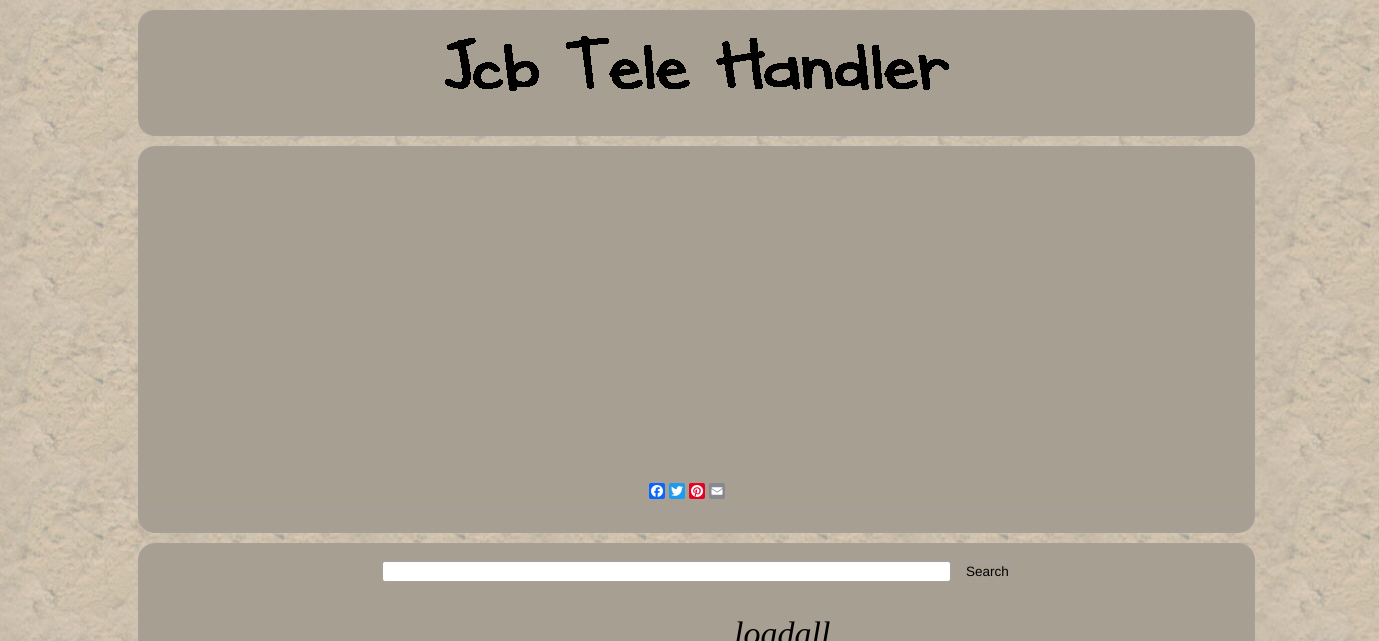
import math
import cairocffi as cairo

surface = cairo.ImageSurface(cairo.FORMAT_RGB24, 1379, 641)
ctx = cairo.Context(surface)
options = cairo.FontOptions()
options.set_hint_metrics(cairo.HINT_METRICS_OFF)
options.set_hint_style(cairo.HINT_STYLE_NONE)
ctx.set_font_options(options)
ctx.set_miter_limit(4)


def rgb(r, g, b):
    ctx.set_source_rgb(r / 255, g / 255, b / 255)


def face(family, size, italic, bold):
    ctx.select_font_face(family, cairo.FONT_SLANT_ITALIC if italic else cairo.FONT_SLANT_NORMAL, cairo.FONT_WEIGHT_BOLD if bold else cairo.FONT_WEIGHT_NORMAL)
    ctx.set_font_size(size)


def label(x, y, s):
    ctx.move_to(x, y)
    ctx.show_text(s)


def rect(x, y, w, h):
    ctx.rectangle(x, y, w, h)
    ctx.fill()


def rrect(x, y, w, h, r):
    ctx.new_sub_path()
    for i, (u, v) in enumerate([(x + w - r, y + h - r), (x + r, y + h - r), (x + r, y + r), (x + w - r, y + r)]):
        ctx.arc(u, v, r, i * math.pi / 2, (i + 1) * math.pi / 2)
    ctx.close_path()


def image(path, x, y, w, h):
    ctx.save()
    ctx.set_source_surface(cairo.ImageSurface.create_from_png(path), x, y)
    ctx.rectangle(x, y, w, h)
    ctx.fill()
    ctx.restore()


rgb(255, 255, 255)
ctx.paint()
image('image0.png', 0, 0, 1379, 641)
rgb(167, 159, 146)
rrect(139, 11, 1115, 124, 16)
ctx.fill_preserve()
rgb(167, 160, 154)
ctx.stroke()
image('image1.png', 445, 36, 504, 55)
rgb(167, 159, 146)
rrect(139, 147, 1115, 385, 16)
ctx.fill_preserve()
rgb(167, 160, 154)
ctx.stroke()
rgb(8, 102, 255)
rrect(649, 483, 16, 16, 2)
ctx.fill()
image('image2.png', 651, 485, 12, 12)
rgb(29, 155, 240)
rrect(669, 483, 16, 16, 2)
ctx.fill()
image('image3.png', 671, 486, 12, 10)
rgb(230, 0, 35)
rrect(689, 483, 16, 16, 2)
ctx.fill()
image('image4.png', 691, 485, 12, 12)
rgb(136, 137, 144)
rrect(709, 483, 16, 16, 2)
ctx.fill()
image('image5.png', 711, 487, 12, 8)
rgb(167, 160, 154)
rect(145, 509, 1103, 2)
rgb(167, 159, 146)
rrect(139, 544, 1115, 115, 16)
ctx.fill_preserve()
rgb(167, 160, 154)
ctx.stroke()
rgb(255, 255, 255)
rrect(382, 561, 569, 21, 3)
ctx.fill_preserve()
rgb(167, 160, 154)
ctx.stroke()
rrect(963, 561, 48, 21, 3)
ctx.stroke()
face('Liberation Sans', 13.5, 0, 0)
rgb(0, 0, 0)
label(966, 576, 'Search')
rgb(167, 160, 154)
rect(155, 603, 1083, 2)
face('Liberation Serif', 34, 1, 0)
rgb(0, 0, 0)
label(734, 645, 'loadall')
surface.write_to_png('render.png')
